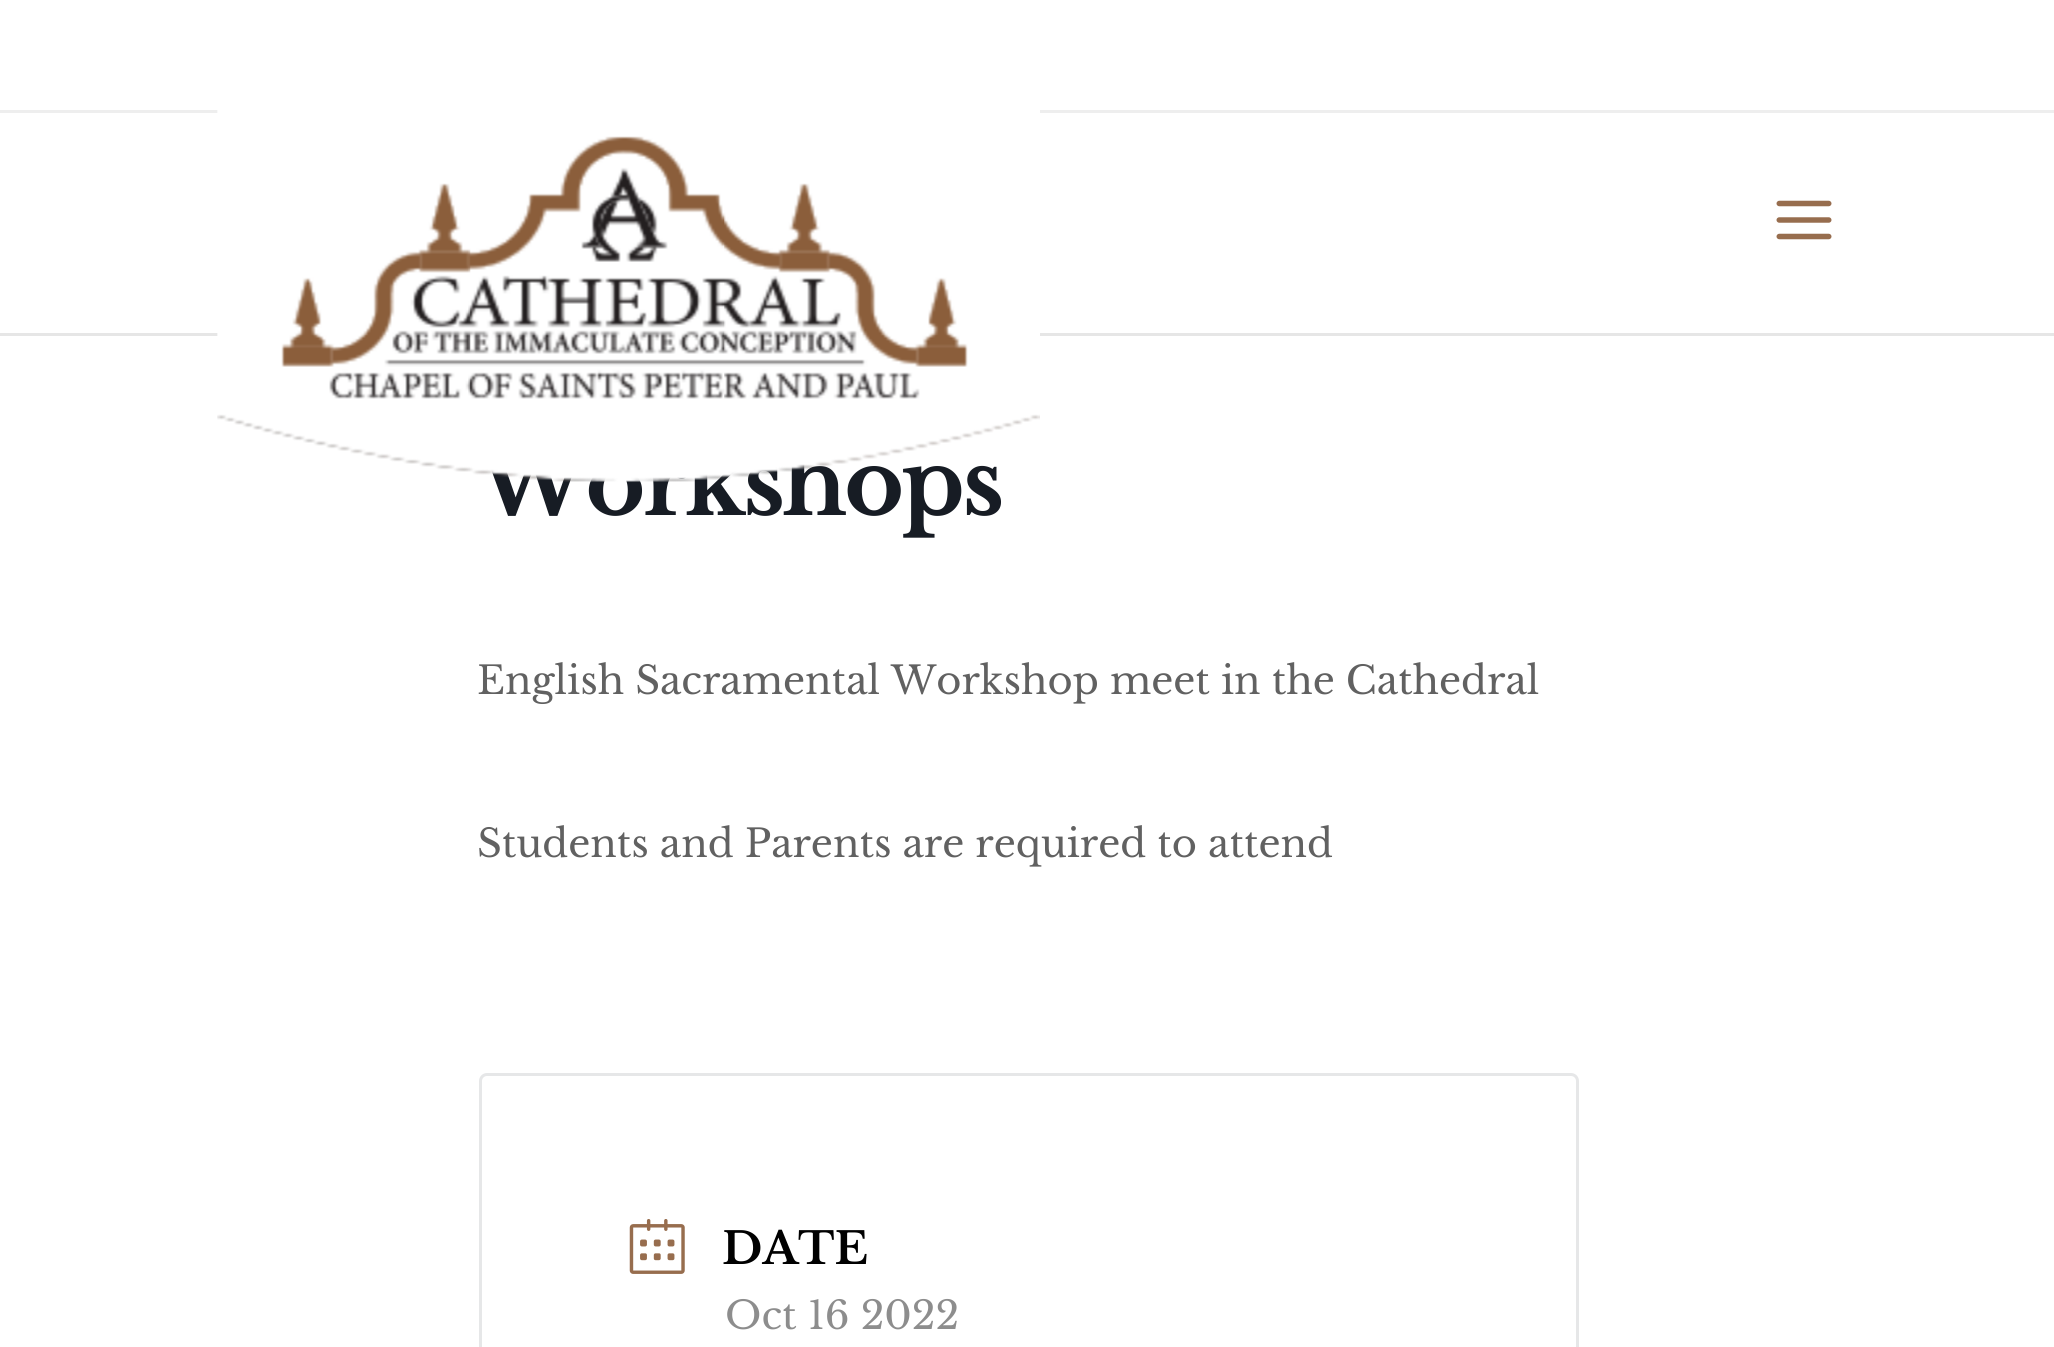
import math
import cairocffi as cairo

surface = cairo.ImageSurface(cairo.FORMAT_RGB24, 2054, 1347)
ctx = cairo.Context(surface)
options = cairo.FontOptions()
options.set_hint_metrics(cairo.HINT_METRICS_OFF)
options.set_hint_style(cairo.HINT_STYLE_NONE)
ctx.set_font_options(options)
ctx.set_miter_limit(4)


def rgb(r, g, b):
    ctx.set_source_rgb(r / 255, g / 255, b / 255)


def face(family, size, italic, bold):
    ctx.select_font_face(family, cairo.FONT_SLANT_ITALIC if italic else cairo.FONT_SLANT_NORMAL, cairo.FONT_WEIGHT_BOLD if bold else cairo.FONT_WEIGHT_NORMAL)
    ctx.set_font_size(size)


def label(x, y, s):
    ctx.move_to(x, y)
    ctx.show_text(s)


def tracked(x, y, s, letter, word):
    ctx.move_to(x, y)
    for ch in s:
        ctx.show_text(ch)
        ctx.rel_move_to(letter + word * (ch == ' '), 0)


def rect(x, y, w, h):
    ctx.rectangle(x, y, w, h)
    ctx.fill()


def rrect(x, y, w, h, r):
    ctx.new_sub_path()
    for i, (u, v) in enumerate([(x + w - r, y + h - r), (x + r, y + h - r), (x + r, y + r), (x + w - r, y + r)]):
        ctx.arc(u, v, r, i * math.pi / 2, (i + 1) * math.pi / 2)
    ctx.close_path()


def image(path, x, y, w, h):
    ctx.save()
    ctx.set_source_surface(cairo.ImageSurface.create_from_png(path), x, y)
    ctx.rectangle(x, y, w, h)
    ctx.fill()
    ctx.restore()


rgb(255, 255, 255)
ctx.paint()
ctx.set_source_rgba(0, 0, 0, 0.1)
rect(0, 333, 2054, 3)
rgb(238, 238, 238)
rect(0, 110, 2054, 3)
face('Libre Baskerville', 90.75, 0, 1)
rgb(23, 28, 36)
tracked(477, 515, 'Workshops', -2.75, 0)
image('image0.png', 217, 110, 823, 372)
image('image1.png', 1776, 200, 56, 40)
face('Libre Baskerville', 38.5, 0, 0)
rgb(97, 97, 97)
label(477, 694, 'English Sacramental Workshop meet in the Cathedral')
label(477, 857, 'Students and Parents are required to attend')
rrect(480.5, 1074.5, 1097, 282, 6.5)
rgb(230, 231, 232)
ctx.set_line_width(3)
ctx.stroke()
image('image2.png', 629, 1219, 56, 55)
face('Libre Baskerville', 44, 0, 1)
rgb(0, 0, 0)
label(722, 1264, 'DATE')
face('Libre Baskerville', 38.5, 0, 0)
rgb(141, 141, 141)
label(725, 1329, 'Oct 16 2022')
surface.write_to_png('render.png')
